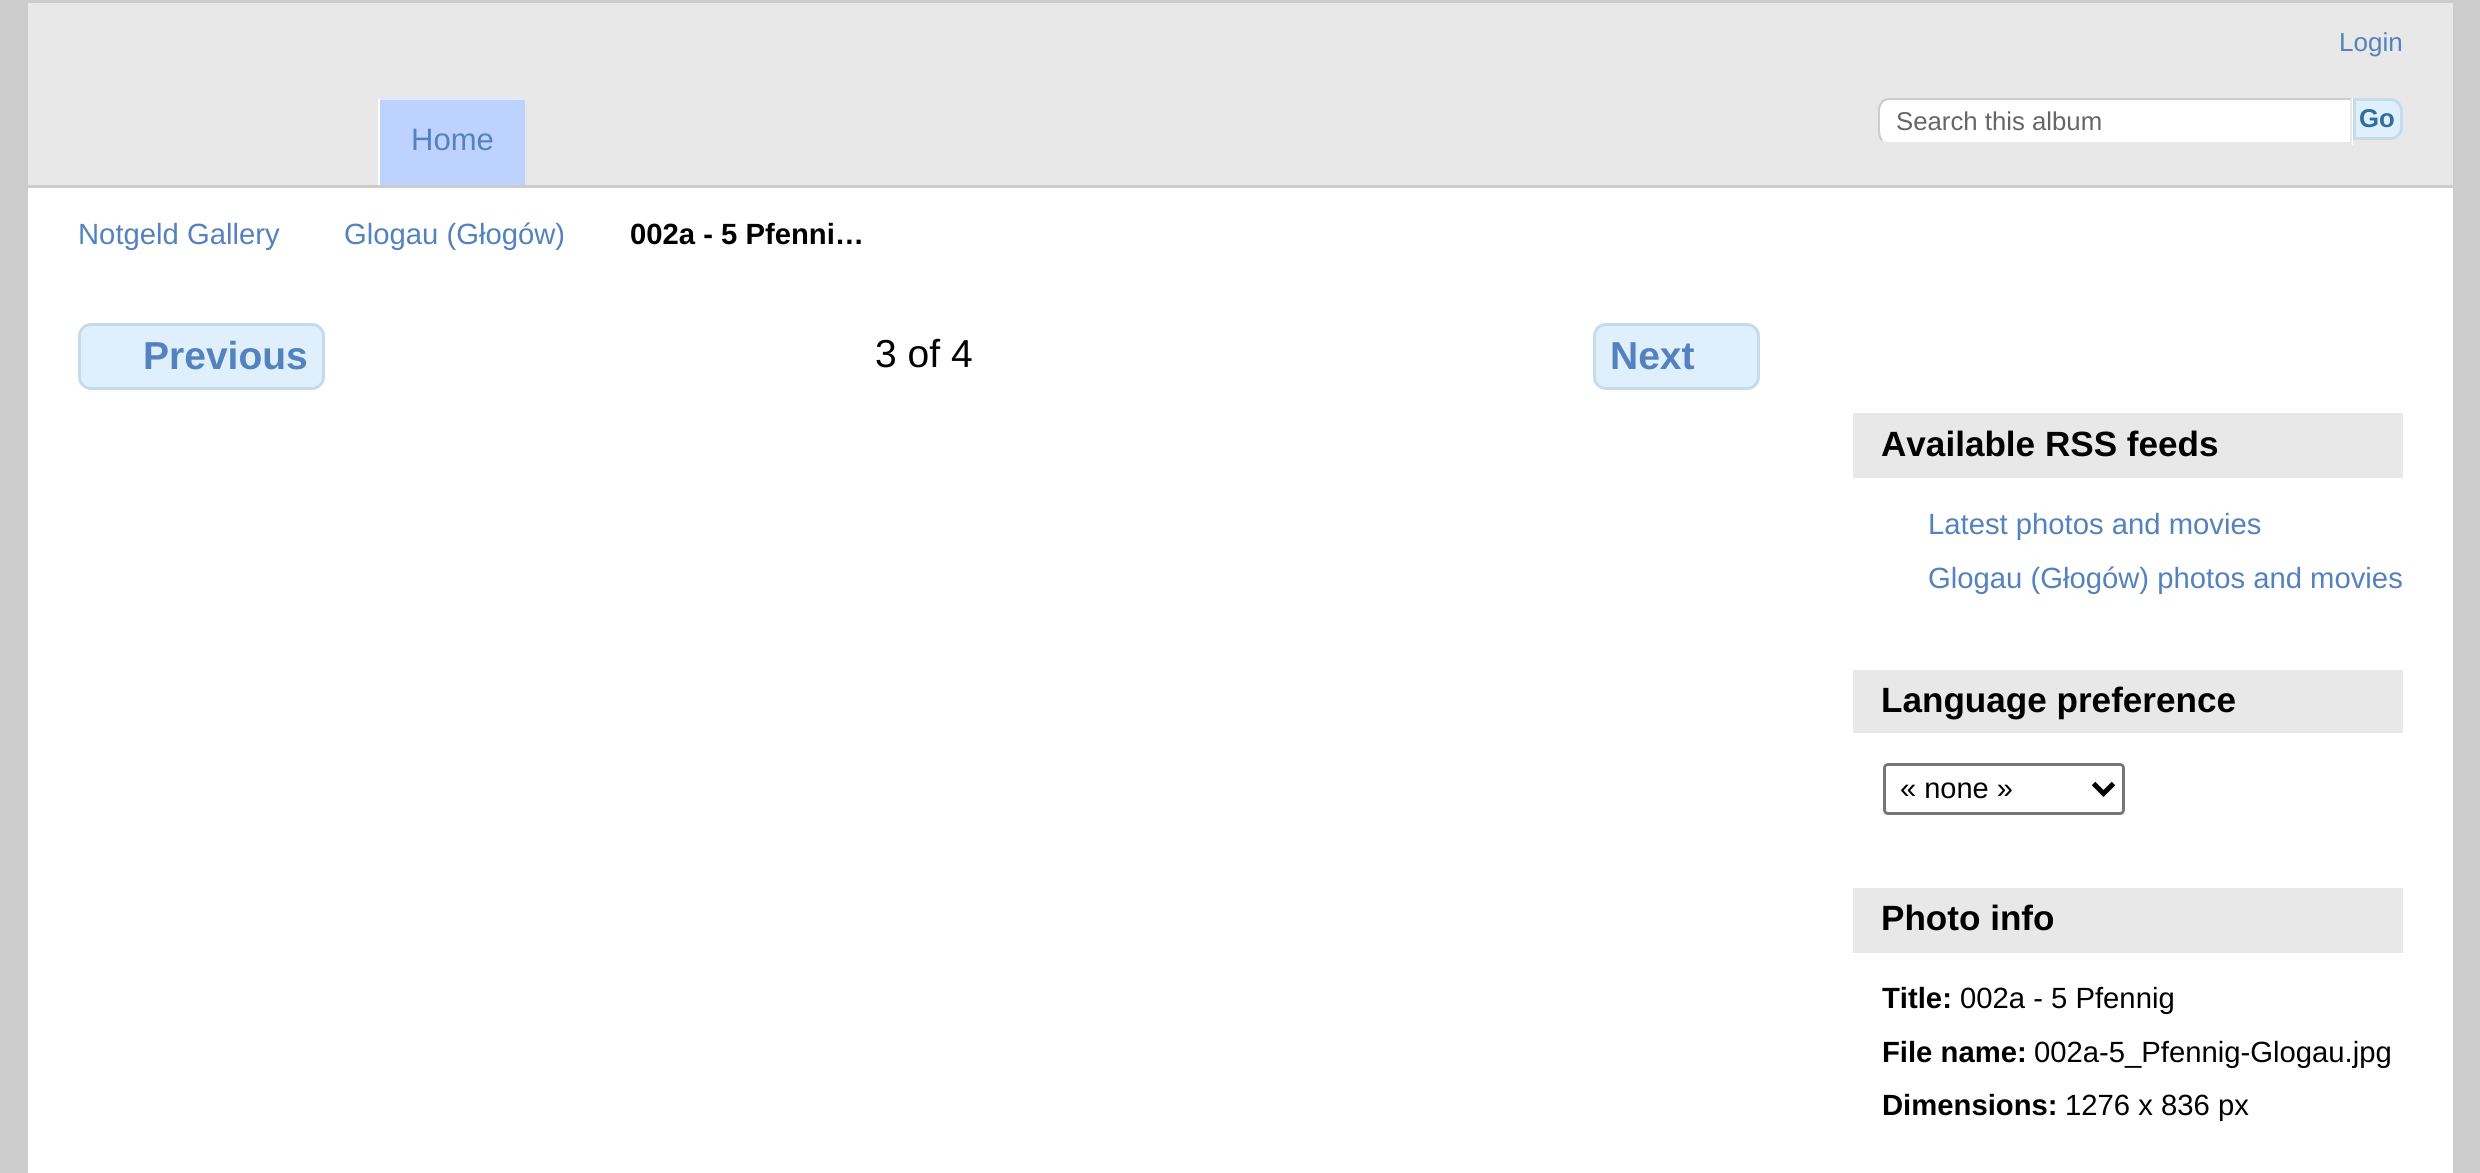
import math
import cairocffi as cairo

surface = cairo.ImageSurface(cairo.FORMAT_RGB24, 2480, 1173)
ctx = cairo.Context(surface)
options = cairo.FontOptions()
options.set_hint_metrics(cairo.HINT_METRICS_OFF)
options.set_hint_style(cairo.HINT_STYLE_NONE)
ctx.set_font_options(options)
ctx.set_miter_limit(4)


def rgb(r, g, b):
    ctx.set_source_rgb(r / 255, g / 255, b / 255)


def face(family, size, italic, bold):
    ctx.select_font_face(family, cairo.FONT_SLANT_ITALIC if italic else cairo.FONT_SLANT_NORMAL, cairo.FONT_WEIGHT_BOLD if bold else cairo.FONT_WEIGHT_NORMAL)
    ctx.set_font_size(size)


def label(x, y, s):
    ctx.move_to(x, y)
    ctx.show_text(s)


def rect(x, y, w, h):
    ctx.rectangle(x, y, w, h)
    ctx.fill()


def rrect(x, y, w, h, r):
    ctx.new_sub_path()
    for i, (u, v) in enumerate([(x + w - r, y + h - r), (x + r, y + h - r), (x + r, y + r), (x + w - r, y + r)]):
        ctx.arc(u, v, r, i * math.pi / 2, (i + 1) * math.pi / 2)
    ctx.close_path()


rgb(204, 204, 204)
ctx.paint()
rgb(255, 255, 255)
rect(28, 188, 2425, 985)
rgb(232, 232, 232)
rect(28, 3, 2425, 182)
face('Liberation Sans', 26, 0, 0)
rgb(83, 130, 191)
label(2339, 51, 'Login')
rgb(255, 255, 255)
ctx.new_path()
ctx.move_to(1891, 98)
ctx.line_to(2353, 98)
ctx.line_to(2353, 145)
ctx.line_to(1891, 145)
ctx.curve_to(1884, 145, 1878, 139, 1878, 132)
ctx.line_to(1878, 111)
ctx.curve_to(1878, 104, 1884, 98, 1891, 98)
ctx.close_path()
ctx.fill()
rgb(204, 204, 204)
ctx.new_path()
ctx.move_to(1890, 98)
ctx.curve_to(1886, 98, 1884, 99, 1881, 101)
ctx.line_to(1883, 103)
ctx.curve_to(1884, 101, 1887, 100, 1890, 100)
ctx.line_to(2350, 100)
ctx.line_to(2352, 98)
ctx.close_path()
ctx.fill()
rgb(232, 232, 232)
ctx.new_path()
ctx.move_to(2352, 144)
ctx.line_to(2352, 98)
ctx.line_to(2350, 100)
ctx.line_to(2350, 142)
ctx.close_path()
ctx.fill()
ctx.new_path()
ctx.move_to(1890, 145)
ctx.line_to(2352, 145)
ctx.line_to(2352, 144)
ctx.line_to(2350, 142)
ctx.line_to(1888, 142)
ctx.curve_to(1886, 142, 1884, 141, 1883, 140)
ctx.line_to(1881, 141)
ctx.curve_to(1884, 144, 1886, 145, 1890, 145)
ctx.close_path()
ctx.fill()
rgb(204, 204, 204)
ctx.new_path()
ctx.move_to(1881.5, 101.5)
ctx.curve_to(1879, 103.5, 1878, 106.5, 1878, 110)
ctx.line_to(1878, 132)
ctx.curve_to(1878, 135.5, 1879, 139, 1881.5, 141)
ctx.line_to(1883, 139.5)
ctx.curve_to(1881.5, 138, 1881, 136.5, 1880.5, 134.5)
ctx.line_to(1880, 131)
ctx.line_to(1880, 109.5)
ctx.curve_to(1880.5, 107, 1881, 104.5, 1883, 103)
ctx.close_path()
ctx.fill()
face('Liberation Sans', 25.75, 0, 0)
rgb(102, 102, 102)
label(1896, 130, 'Search this album')
rgb(223, 239, 252)
ctx.new_path()
ctx.move_to(2354.5, 99.5)
ctx.line_to(2390, 99.5)
ctx.curve_to(2396.5, 99.5, 2401.5, 104.5, 2401.5, 111)
ctx.line_to(2401.5, 127)
ctx.curve_to(2401.5, 133.5, 2396.5, 138.5, 2390, 138.5)
ctx.line_to(2354.5, 138.5)
ctx.close_path()
ctx.fill_preserve()
rgb(197, 219, 236)
ctx.set_line_width(3)
ctx.stroke()
face('Liberation Sans', 25.75, 0, 1)
rgb(46, 110, 158)
label(2359, 127, 'Go')
rgb(189, 210, 255)
rect(378, 98, 147, 87)
rgb(222, 233, 255)
ctx.new_path()
ctx.move_to(378, 98)
ctx.line_to(525, 98)
ctx.line_to(525, 100)
ctx.line_to(380, 100)
ctx.close_path()
ctx.fill()
rgb(255, 255, 255)
ctx.new_path()
ctx.move_to(378, 185)
ctx.line_to(378, 98)
ctx.line_to(380, 100)
ctx.line_to(380, 185)
ctx.close_path()
ctx.fill()
face('Liberation Sans', 31, 0, 0)
rgb(83, 130, 191)
label(411, 150, 'Home')
face('Liberation Sans', 29.25, 0, 0)
label(78, 244, 'Notgeld Gallery')
label(344, 244, 'Glogau (Głogów)')
face('Liberation Sans', 29.25, 0, 1)
rgb(0, 0, 0)
label(630, 244, '002a - 5 Pfenni…')
rgb(223, 239, 252)
rrect(79.5, 324.5, 244, 64, 11.5)
ctx.fill_preserve()
rgb(197, 219, 236)
ctx.stroke()
face('Liberation Sans', 39, 0, 1)
rgb(83, 130, 191)
label(143, 369, 'Previous')
face('Liberation Sans', 39, 0, 0)
rgb(0, 0, 0)
label(875, 367, '3 of 4')
rgb(223, 239, 252)
rrect(1594.5, 324.5, 164, 64, 11.5)
ctx.fill_preserve()
rgb(197, 219, 236)
ctx.stroke()
face('Liberation Sans', 39, 0, 1)
rgb(83, 130, 191)
label(1610, 369, 'Next')
rgb(232, 232, 232)
rect(1853, 413, 550, 65)
face('Liberation Sans', 35.1, 0, 1)
rgb(0, 0, 0)
label(1881, 456, 'Available RSS feeds')
face('Liberation Sans', 29.25, 0, 0)
rgb(83, 130, 191)
label(1928, 534, 'Latest photos and movies')
label(1928, 588, 'Glogau (Głogów) photos and movies')
rgb(232, 232, 232)
rect(1853, 670, 550, 63)
face('Liberation Sans', 35.1, 0, 1)
rgb(0, 0, 0)
label(1881, 712, 'Language preference')
rrect(1884.5, 764.5, 239, 49, 3.5)
rgb(118, 118, 118)
ctx.stroke()
ctx.new_path()
ctx.move_to(2093.5, 783.5)
ctx.line_to(2103.5, 793.5)
ctx.line_to(2113.5, 783.5)
rgb(0, 0, 0)
ctx.set_line_width(5)
ctx.stroke()
face('Liberation Sans', 29, 0, 0)
label(1900, 798, '« none »')
rgb(232, 232, 232)
rect(1853, 888, 550, 65)
face('Liberation Sans', 35.1, 0, 1)
rgb(0, 0, 0)
label(1881, 930, 'Photo info')
face('Liberation Sans', 29.25, 0, 1)
label(1882, 1008, 'Title:')
face('Liberation Sans', 29.25, 0, 0)
label(1960, 1008, '002a - 5 Pfennig')
face('Liberation Sans', 29.25, 0, 1)
label(1882, 1062, 'File name:')
face('Liberation Sans', 29.25, 0, 0)
label(2034, 1062, '002a-5_Pfennig-Glogau.jpg')
face('Liberation Sans', 29.25, 0, 1)
label(1882, 1115, 'Dimensions:')
face('Liberation Sans', 29.25, 0, 0)
label(2065, 1115, '1276 x 836 px')
surface.write_to_png('render.png')
